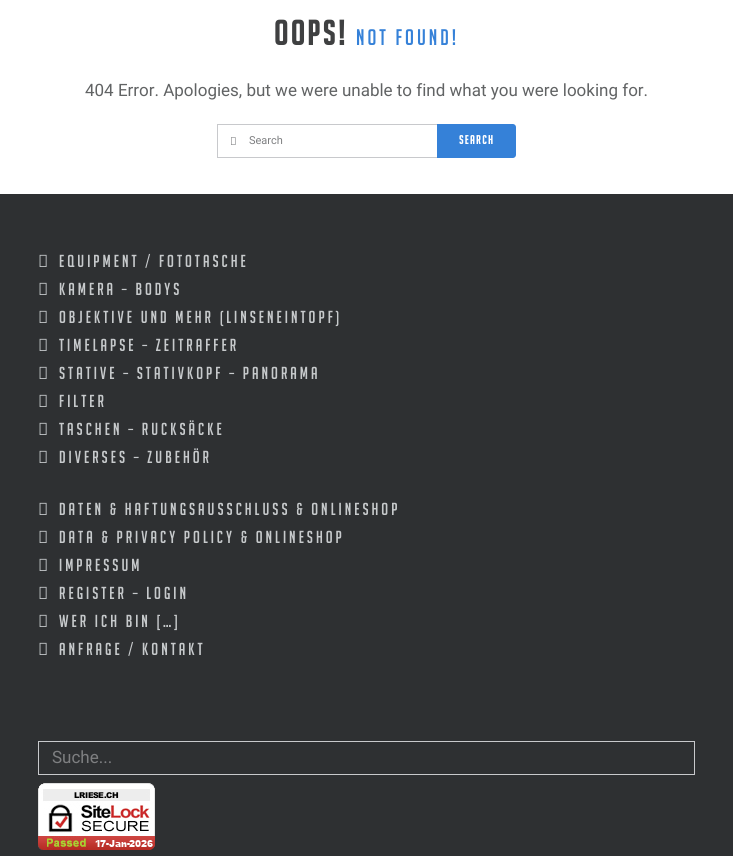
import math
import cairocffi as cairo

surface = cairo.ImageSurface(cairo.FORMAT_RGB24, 733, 856)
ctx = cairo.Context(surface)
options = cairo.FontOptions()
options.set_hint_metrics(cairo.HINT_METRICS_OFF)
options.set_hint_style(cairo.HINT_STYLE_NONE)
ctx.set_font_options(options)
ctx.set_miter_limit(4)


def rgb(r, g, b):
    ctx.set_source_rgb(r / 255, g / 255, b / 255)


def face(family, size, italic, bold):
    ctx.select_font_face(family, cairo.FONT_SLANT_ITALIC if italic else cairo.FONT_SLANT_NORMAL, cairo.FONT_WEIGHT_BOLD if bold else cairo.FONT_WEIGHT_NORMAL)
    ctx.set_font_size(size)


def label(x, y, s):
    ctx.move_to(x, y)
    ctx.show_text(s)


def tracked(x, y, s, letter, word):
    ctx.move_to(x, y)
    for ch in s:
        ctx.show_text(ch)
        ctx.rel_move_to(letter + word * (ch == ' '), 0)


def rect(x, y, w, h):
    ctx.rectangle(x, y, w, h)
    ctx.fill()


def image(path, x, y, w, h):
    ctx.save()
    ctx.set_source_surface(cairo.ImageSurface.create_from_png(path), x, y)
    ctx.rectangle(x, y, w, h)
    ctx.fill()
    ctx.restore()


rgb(255, 255, 255)
ctx.paint()
face('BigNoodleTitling', 34, 0, 1)
rgb(63, 64, 65)
tracked(274, 45, 'OOPS!', 3, 0)
face('BigNoodleTitling', 22, 0, 0)
rgb(53, 129, 216)
tracked(356, 45, 'NOT FOUND!', 3, 0)
face('Roboto', 17, 0, 0)
rgb(97, 99, 100)
label(85, 96, '404 Error. Apologies, but we were unable to find what you were looking for.')
image('image0.png', 231, 137, 5, 8)
rgb(200, 201, 204)
rect(217, 124, 220, 1)
rect(217, 157, 220, 1)
rect(217, 124, 1, 34)
face('Roboto', 11, 0, 0)
rgb(126, 127, 129)
label(249, 144, 'Search')
rgb(53, 129, 216)
ctx.new_path()
ctx.move_to(437, 124)
ctx.line_to(513, 124)
ctx.curve_to(514.5, 124, 516, 125.5, 516, 127)
ctx.line_to(516, 155)
ctx.curve_to(516, 156.5, 514.5, 158, 513, 158)
ctx.line_to(437, 158)
ctx.close_path()
ctx.fill()
face('BigNoodleTitling', 12, 0, 1)
rgb(255, 255, 255)
tracked(459, 144, 'SEARCH', 1.5, 0)
rgb(46, 48, 50)
rect(0, 194, 733, 662)
image('image1.png', 39, 254, 8, 13)
face('BigNoodleTitling', 17, 0, 0)
rgb(199, 202, 204)
tracked(59, 267, 'EQUIPMENT / FOTOTASCHE', 3, 0)
image('image1.png', 39, 282, 8, 13)
tracked(59, 295, 'Kamera – Bodys', 3, 0)
image('image1.png', 39, 310, 8, 13)
tracked(59, 323, 'Objektive und mehr (Linseneintopf)', 3, 0)
image('image1.png', 39, 338, 8, 13)
tracked(59, 351, 'Timelapse – Zeitraffer', 3, 0)
image('image1.png', 39, 366, 8, 13)
tracked(59, 379, 'Stative – Stativkopf – Panorama', 3, 0)
image('image1.png', 39, 394, 8, 13)
tracked(59, 407, 'Filter', 3, 0)
image('image1.png', 39, 422, 8, 13)
tracked(59, 435, 'Taschen – Rucksäcke', 3, 0)
image('image1.png', 39, 450, 8, 13)
tracked(59, 463, 'Diverses – zubehör', 3, 0)
image('image1.png', 39, 502, 8, 13)
tracked(59, 515, 'Daten & Haftungsausschluss & Onlineshop', 3, 0)
image('image1.png', 39, 530, 8, 13)
tracked(59, 543, 'Data & Privacy Policy & Onlineshop', 3, 0)
image('image1.png', 39, 558, 8, 13)
tracked(59, 571, 'Impressum', 3, 0)
image('image1.png', 39, 586, 8, 13)
tracked(59, 599, 'Register – Login', 3, 0)
image('image1.png', 39, 614, 8, 13)
tracked(59, 627, 'Wer ich bin […]', 3, 0)
image('image1.png', 39, 642, 8, 13)
tracked(59, 655, 'Anfrage / Kontakt', 3, 0)
ctx.rectangle(38.5, 741.5, 656, 33)
rgb(200, 201, 204)
ctx.set_line_width(1)
ctx.stroke()
face('Roboto', 17, 0, 0)
rgb(126, 127, 129)
label(52, 763, 'Suche...')
image('image2.png', 38, 783, 117, 67)
surface.write_to_png('render.png')
